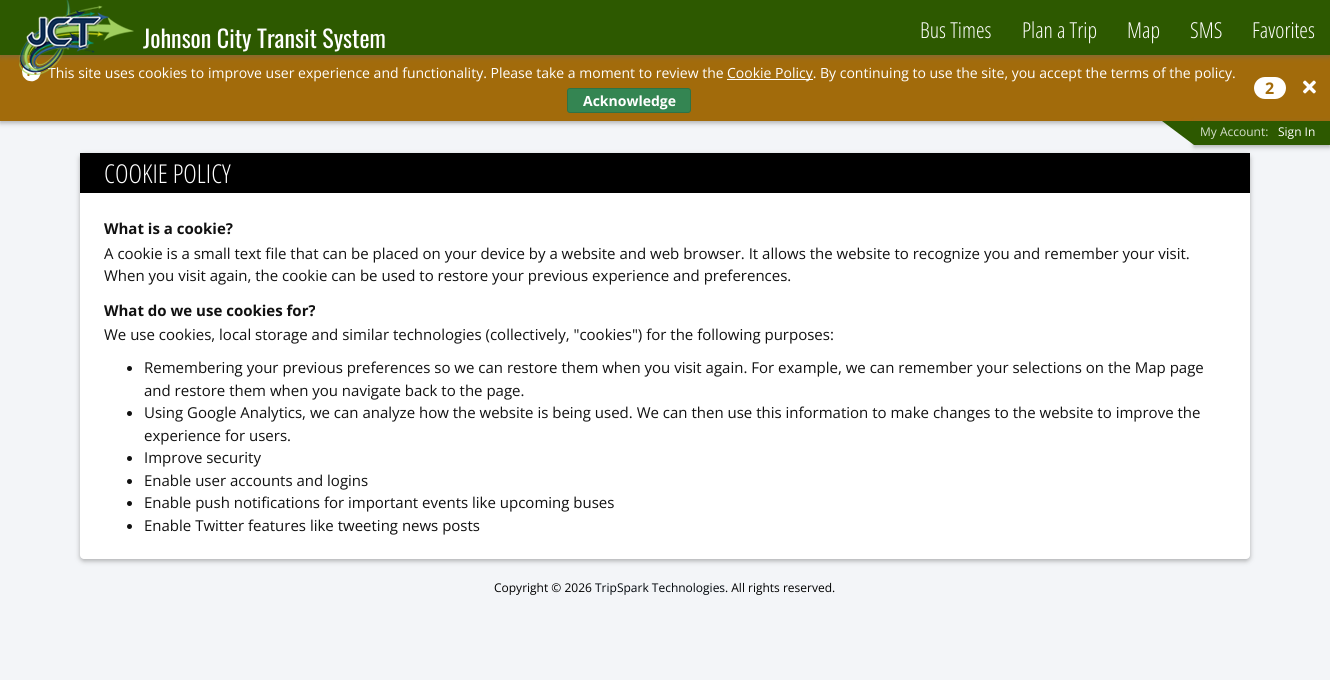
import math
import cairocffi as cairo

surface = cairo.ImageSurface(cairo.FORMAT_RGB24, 1330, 680)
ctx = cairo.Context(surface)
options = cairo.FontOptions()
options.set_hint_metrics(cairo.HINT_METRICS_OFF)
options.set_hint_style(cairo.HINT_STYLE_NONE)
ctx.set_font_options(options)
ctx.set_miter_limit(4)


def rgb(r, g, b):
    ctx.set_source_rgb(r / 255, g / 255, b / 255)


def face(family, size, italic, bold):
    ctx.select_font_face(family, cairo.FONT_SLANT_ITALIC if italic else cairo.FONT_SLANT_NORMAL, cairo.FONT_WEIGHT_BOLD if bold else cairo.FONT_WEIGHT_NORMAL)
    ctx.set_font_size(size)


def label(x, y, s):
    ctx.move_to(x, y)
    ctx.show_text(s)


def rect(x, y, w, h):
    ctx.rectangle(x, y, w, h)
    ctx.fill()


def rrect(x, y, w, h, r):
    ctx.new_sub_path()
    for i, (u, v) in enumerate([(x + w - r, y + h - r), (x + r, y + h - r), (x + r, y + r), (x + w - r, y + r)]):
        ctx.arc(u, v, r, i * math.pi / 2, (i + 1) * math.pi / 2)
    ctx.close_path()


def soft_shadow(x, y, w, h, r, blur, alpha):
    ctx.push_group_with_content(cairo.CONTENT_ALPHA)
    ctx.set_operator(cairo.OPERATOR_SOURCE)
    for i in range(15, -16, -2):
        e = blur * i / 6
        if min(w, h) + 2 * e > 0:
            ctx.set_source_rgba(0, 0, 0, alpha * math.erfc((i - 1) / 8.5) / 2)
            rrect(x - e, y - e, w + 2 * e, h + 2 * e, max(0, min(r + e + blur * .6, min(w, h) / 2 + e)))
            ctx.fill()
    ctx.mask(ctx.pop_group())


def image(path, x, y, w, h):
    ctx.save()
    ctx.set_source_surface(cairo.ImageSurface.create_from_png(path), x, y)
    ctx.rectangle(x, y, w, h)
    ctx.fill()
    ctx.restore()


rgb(243, 245, 248)
ctx.paint()
rgb(100, 100, 100)
soft_shadow(0, 57, 1330, 66, 0, 2.5, 0.49)
rgb(162, 107, 11)
rect(0, 55, 1330, 66)
image('image1.png', 22, 62, 19, 20)
rgb(100, 100, 100)
soft_shadow(0, 2, 1330, 55, 0, 2.5, 0.49)
rgb(45, 89, 0)
rect(0, 0, 1330, 55)
face('Open Sans', 14, 0, 0)
rgb(255, 255, 255)
label(48, 78, 'This site uses cookies to improve user experience and functionality. Please take a moment to review the')
image('image0.png', 19, 0, 115, 75)
face('Oswald', 24, 0, 0)
label(143, 48, 'Johnson City Transit System')
face('Open Sans Condensed Light', 22, 0, 0)
label(920, 38, 'Bus Times')
label(1022, 38, 'Plan a Trip')
label(1127, 38, 'Map')
label(1190, 38, 'SMS')
label(1252, 38, 'Favorites')
rect(727, 79, 86, 1)
face('Open Sans', 14, 0, 0)
label(727, 78, 'Cookie Policy. By continuing to use the site, you accept the terms of the policy.')
rgb(52, 133, 82)
rrect(567.5, 88.5, 123, 24, 2.5)
ctx.fill_preserve()
rgb(45, 115, 71)
ctx.set_line_width(1)
ctx.stroke()
face('Open Sans', 14, 0, 1)
rgb(255, 255, 255)
label(583, 106, 'Acknowledge')
rrect(1254, 77, 32, 22, 11)
ctx.fill()
face('Open Sans', 16, 0, 1)
rgb(162, 107, 11)
label(1265, 94, '2')
image('image2.png', 1303, 80, 13, 14)
rgb(100, 100, 100)
soft_shadow(80, 155, 1170, 406, 4, 2.5, 0.49)
rgb(255, 255, 255)
rrect(80, 153, 1170, 406, 4)
ctx.fill()
rgb(0, 0, 0)
rect(80, 153, 1170, 40)
rgb(100, 100, 100)
soft_shadow(1194, 123, 136, 24, 0, 2.5, 0.49)
rgb(45, 89, 0)
rect(1194, 121, 136, 24)
ctx.new_path()
ctx.move_to(1162, 121)
ctx.line_to(1194, 121)
ctx.line_to(1194, 145)
ctx.close_path()
ctx.fill()
face('Open Sans', 12, 0, 0)
rgb(213, 222, 204)
label(1200, 136, 'My Account:')
rgb(255, 255, 255)
label(1278, 136, 'Sign In')
face('Open Sans Condensed Light', 26, 0, 0)
label(104, 183, 'COOKIE POLICY')
face('Open Sans', 15, 0, 1)
rgb(17, 17, 17)
label(104, 234, 'What is a cookie?')
face('Open Sans', 15, 0, 0)
label(104, 259, 'A cookie is a small text file that can be placed on your device by a website and web browser. It allows the website to recognize you and remember your visit.')
label(104, 281, 'When you visit again, the cookie can be used to restore your previous experience and preferences.')
face('Open Sans', 15, 0, 1)
label(104, 316, 'What do we use cookies for?')
face('Open Sans', 15, 0, 0)
label(104, 340, 'We use cookies, local storage and similar technologies (collectively, "cookies") for the following purposes:')
ctx.new_path()
ctx.arc(129.5, 368.5, 2.5, 0, 2 * math.pi)
ctx.fill()
label(144, 373, 'Remembering your previous preferences so we can restore them when you visit again. For example, we can remember your selections on the Map page')
label(144, 396, 'and restore them when you navigate back to the page.')
ctx.new_path()
ctx.arc(129.5, 413.5, 2.5, 0, 2 * math.pi)
ctx.fill()
label(144, 418, 'Using Google Analytics, we can analyze how the website is being used. We can then use this information to make changes to the website to improve the')
label(144, 441, 'experience for users.')
ctx.new_path()
ctx.arc(129.5, 458.5, 2.5, 0, 2 * math.pi)
ctx.fill()
label(144, 463, 'Improve security')
ctx.new_path()
ctx.arc(129.5, 481.5, 2.5, 0, 2 * math.pi)
ctx.fill()
label(144, 486, 'Enable user accounts and logins')
ctx.new_path()
ctx.arc(129.5, 503.5, 2.5, 0, 2 * math.pi)
ctx.fill()
label(144, 508, 'Enable push notifications for important events like upcoming buses')
ctx.new_path()
ctx.arc(129.5, 526.5, 2.5, 0, 2 * math.pi)
ctx.fill()
label(144, 531, 'Enable Twitter features like tweeting news posts')
face('Open Sans', 12, 0, 0)
rgb(0, 0, 0)
label(494, 592, 'Copyright © 2026')
rgb(1, 6, 11)
label(595, 592, 'TripSpark Technologies')
rgb(0, 0, 0)
label(725, 592, '. All rights reserved.')
surface.write_to_png('render.png')
